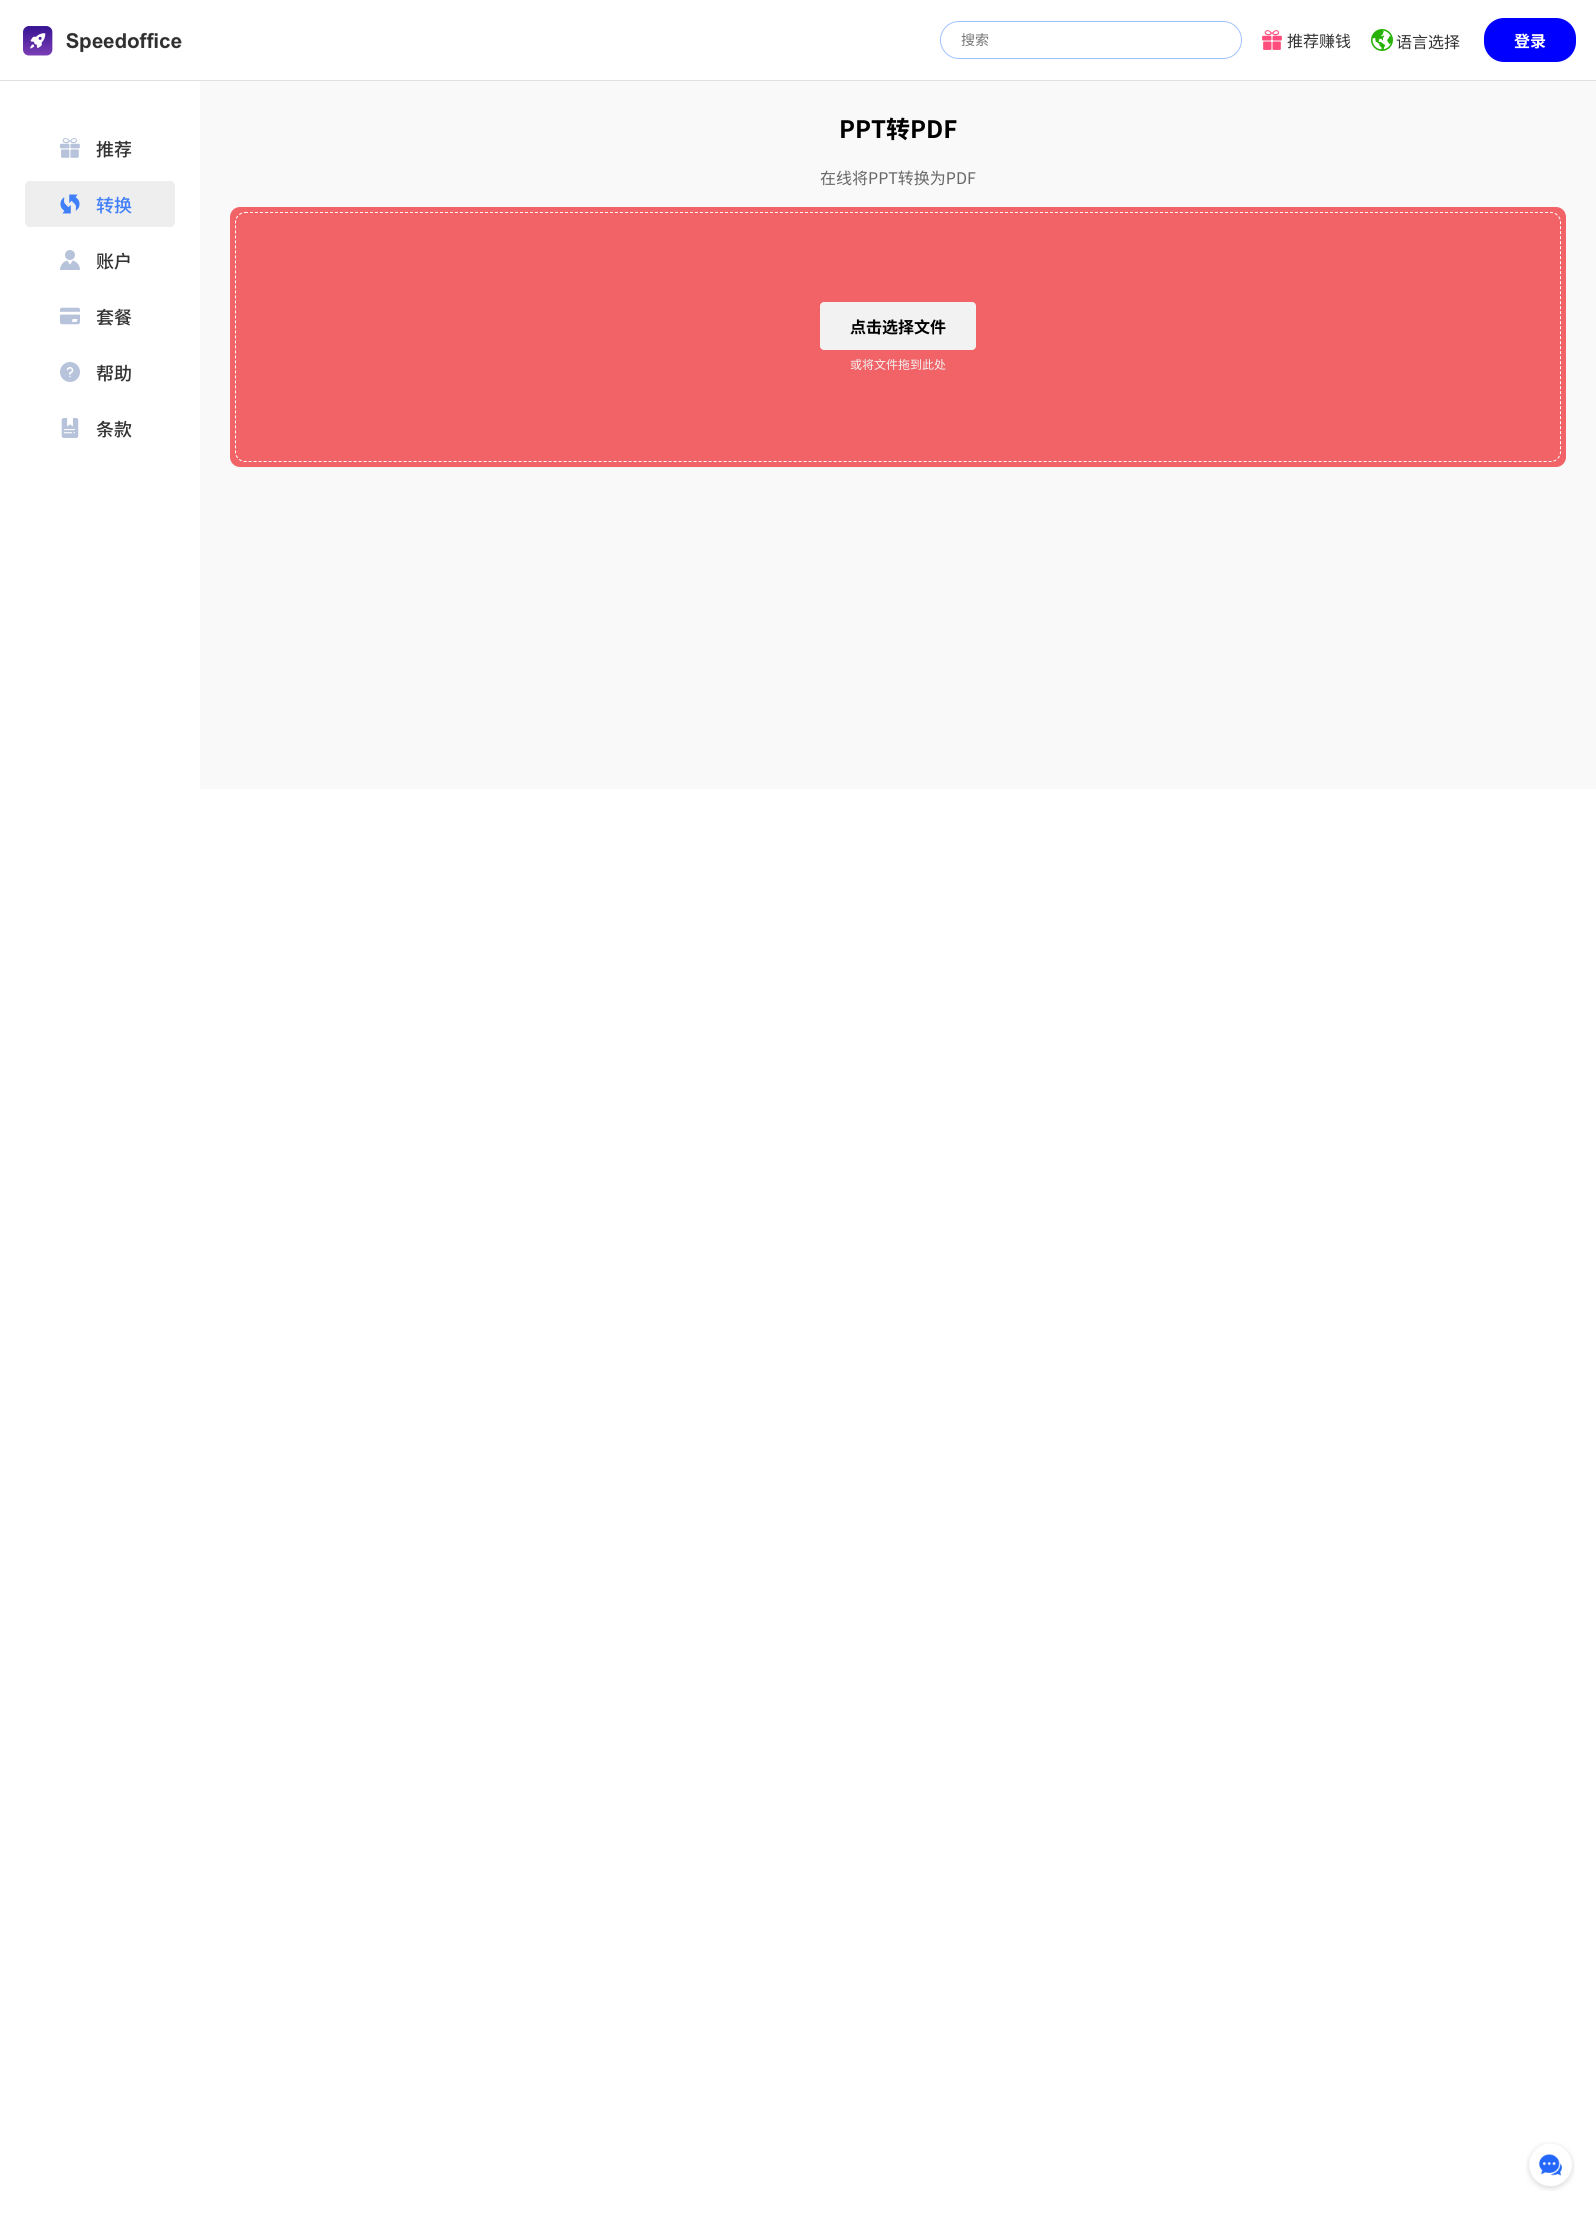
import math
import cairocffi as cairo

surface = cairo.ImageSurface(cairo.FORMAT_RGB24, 1596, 2217)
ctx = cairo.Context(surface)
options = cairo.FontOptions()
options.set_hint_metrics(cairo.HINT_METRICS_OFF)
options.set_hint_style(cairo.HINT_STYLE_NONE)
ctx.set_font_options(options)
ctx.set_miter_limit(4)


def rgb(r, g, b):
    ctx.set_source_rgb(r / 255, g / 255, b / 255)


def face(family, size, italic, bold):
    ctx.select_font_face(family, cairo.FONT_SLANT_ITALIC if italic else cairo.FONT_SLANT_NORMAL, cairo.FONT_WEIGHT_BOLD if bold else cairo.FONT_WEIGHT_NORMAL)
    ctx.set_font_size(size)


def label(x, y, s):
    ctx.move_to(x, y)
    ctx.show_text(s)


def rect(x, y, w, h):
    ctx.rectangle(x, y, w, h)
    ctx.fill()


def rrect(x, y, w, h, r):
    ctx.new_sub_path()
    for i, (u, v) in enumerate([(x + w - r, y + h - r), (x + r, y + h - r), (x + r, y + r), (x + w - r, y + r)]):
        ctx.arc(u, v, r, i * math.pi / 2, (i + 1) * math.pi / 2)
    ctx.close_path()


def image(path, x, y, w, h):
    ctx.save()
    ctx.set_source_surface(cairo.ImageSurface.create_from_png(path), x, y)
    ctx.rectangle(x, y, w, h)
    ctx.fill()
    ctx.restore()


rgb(255, 255, 255)
ctx.paint()
rgb(224, 224, 224)
rect(0, 80, 1596, 1)
image('image0.png', 23, 26, 159, 30)
rrect(940.5, 21.5, 301, 37, 18.5)
rgb(160, 195, 255)
ctx.set_line_width(1)
ctx.stroke()
face('Noto Sans CJK SC', 14, 0, 0)
rgb(117, 117, 117)
label(961, 45, '搜索')
image('image1.png', 1262, 30, 20, 20)
face('Noto Sans SC', 16, 0, 0)
rgb(51, 51, 51)
label(1287, 47, '推荐赚钱')
image('image2.png', 1371, 29, 22, 22)
label(1396, 48, '语言选择')
rgb(0, 0, 255)
rrect(1484, 18, 92, 44, 20)
ctx.fill()
face('Noto Sans SC', 16, 0, 1)
rgb(255, 255, 255)
label(1514, 47, '登录')
image('image3.png', 60, 138, 20, 20)
face('Noto Sans SC Medium', 18, 0, 0)
rgb(51, 51, 51)
label(96, 156, '推荐')
rgb(238, 238, 238)
rrect(25, 181, 150, 46, 5)
ctx.fill()
image('image4.png', 60, 194, 20, 20)
rgb(65, 127, 249)
label(96, 212, '转换')
image('image5.png', 60, 250, 20, 20)
rgb(51, 51, 51)
label(96, 268, '账户')
image('image6.png', 60, 307, 20, 18)
label(96, 324, '套餐')
image('image7.png', 60, 362, 20, 20)
label(96, 380, '帮助')
image('image8.png', 61, 418, 18, 20)
label(96, 436, '条款')
rgb(249, 249, 249)
rect(200, 81, 1396, 708)
face('Noto Sans SC', 24, 0, 1)
rgb(0, 0, 0)
label(839, 138, 'PPT转PDF')
face('Noto Sans SC', 16, 0, 0)
rgb(104, 104, 104)
label(820, 184, '在线将PPT转换为PDF')
rgb(241, 99, 103)
rrect(230, 207, 1336, 260, 10)
ctx.fill()
rgb(242, 242, 242)
rrect(820, 302, 156, 48, 4)
ctx.fill()
face('Noto Sans SC', 16, 0, 1)
rgb(0, 0, 0)
label(850, 333, '点击选择文件')
face('Noto Sans SC', 12, 0, 0)
rgb(242, 242, 242)
label(850, 369, '或将文件拖到此处')
ctx.new_path()
ctx.move_to(245, 212.5)
ctx.line_to(1551, 212.5)
ctx.curve_to(1556, 212.5, 1560.5, 217, 1560.5, 222)
ctx.line_to(1560.5, 452)
ctx.curve_to(1560.5, 457, 1556, 461.5, 1551, 461.5)
ctx.line_to(245, 461.5)
ctx.curve_to(240, 461.5, 235.5, 457, 235.5, 452)
ctx.line_to(235.5, 222)
ctx.curve_to(235.5, 217, 240, 212.5, 245, 212.5)
ctx.close_path()
rgb(255, 255, 255)
ctx.set_dash([3, 2])
ctx.stroke()
image('image9.png', 1526, 2142, 49, 49)
surface.write_to_png('render.png')
